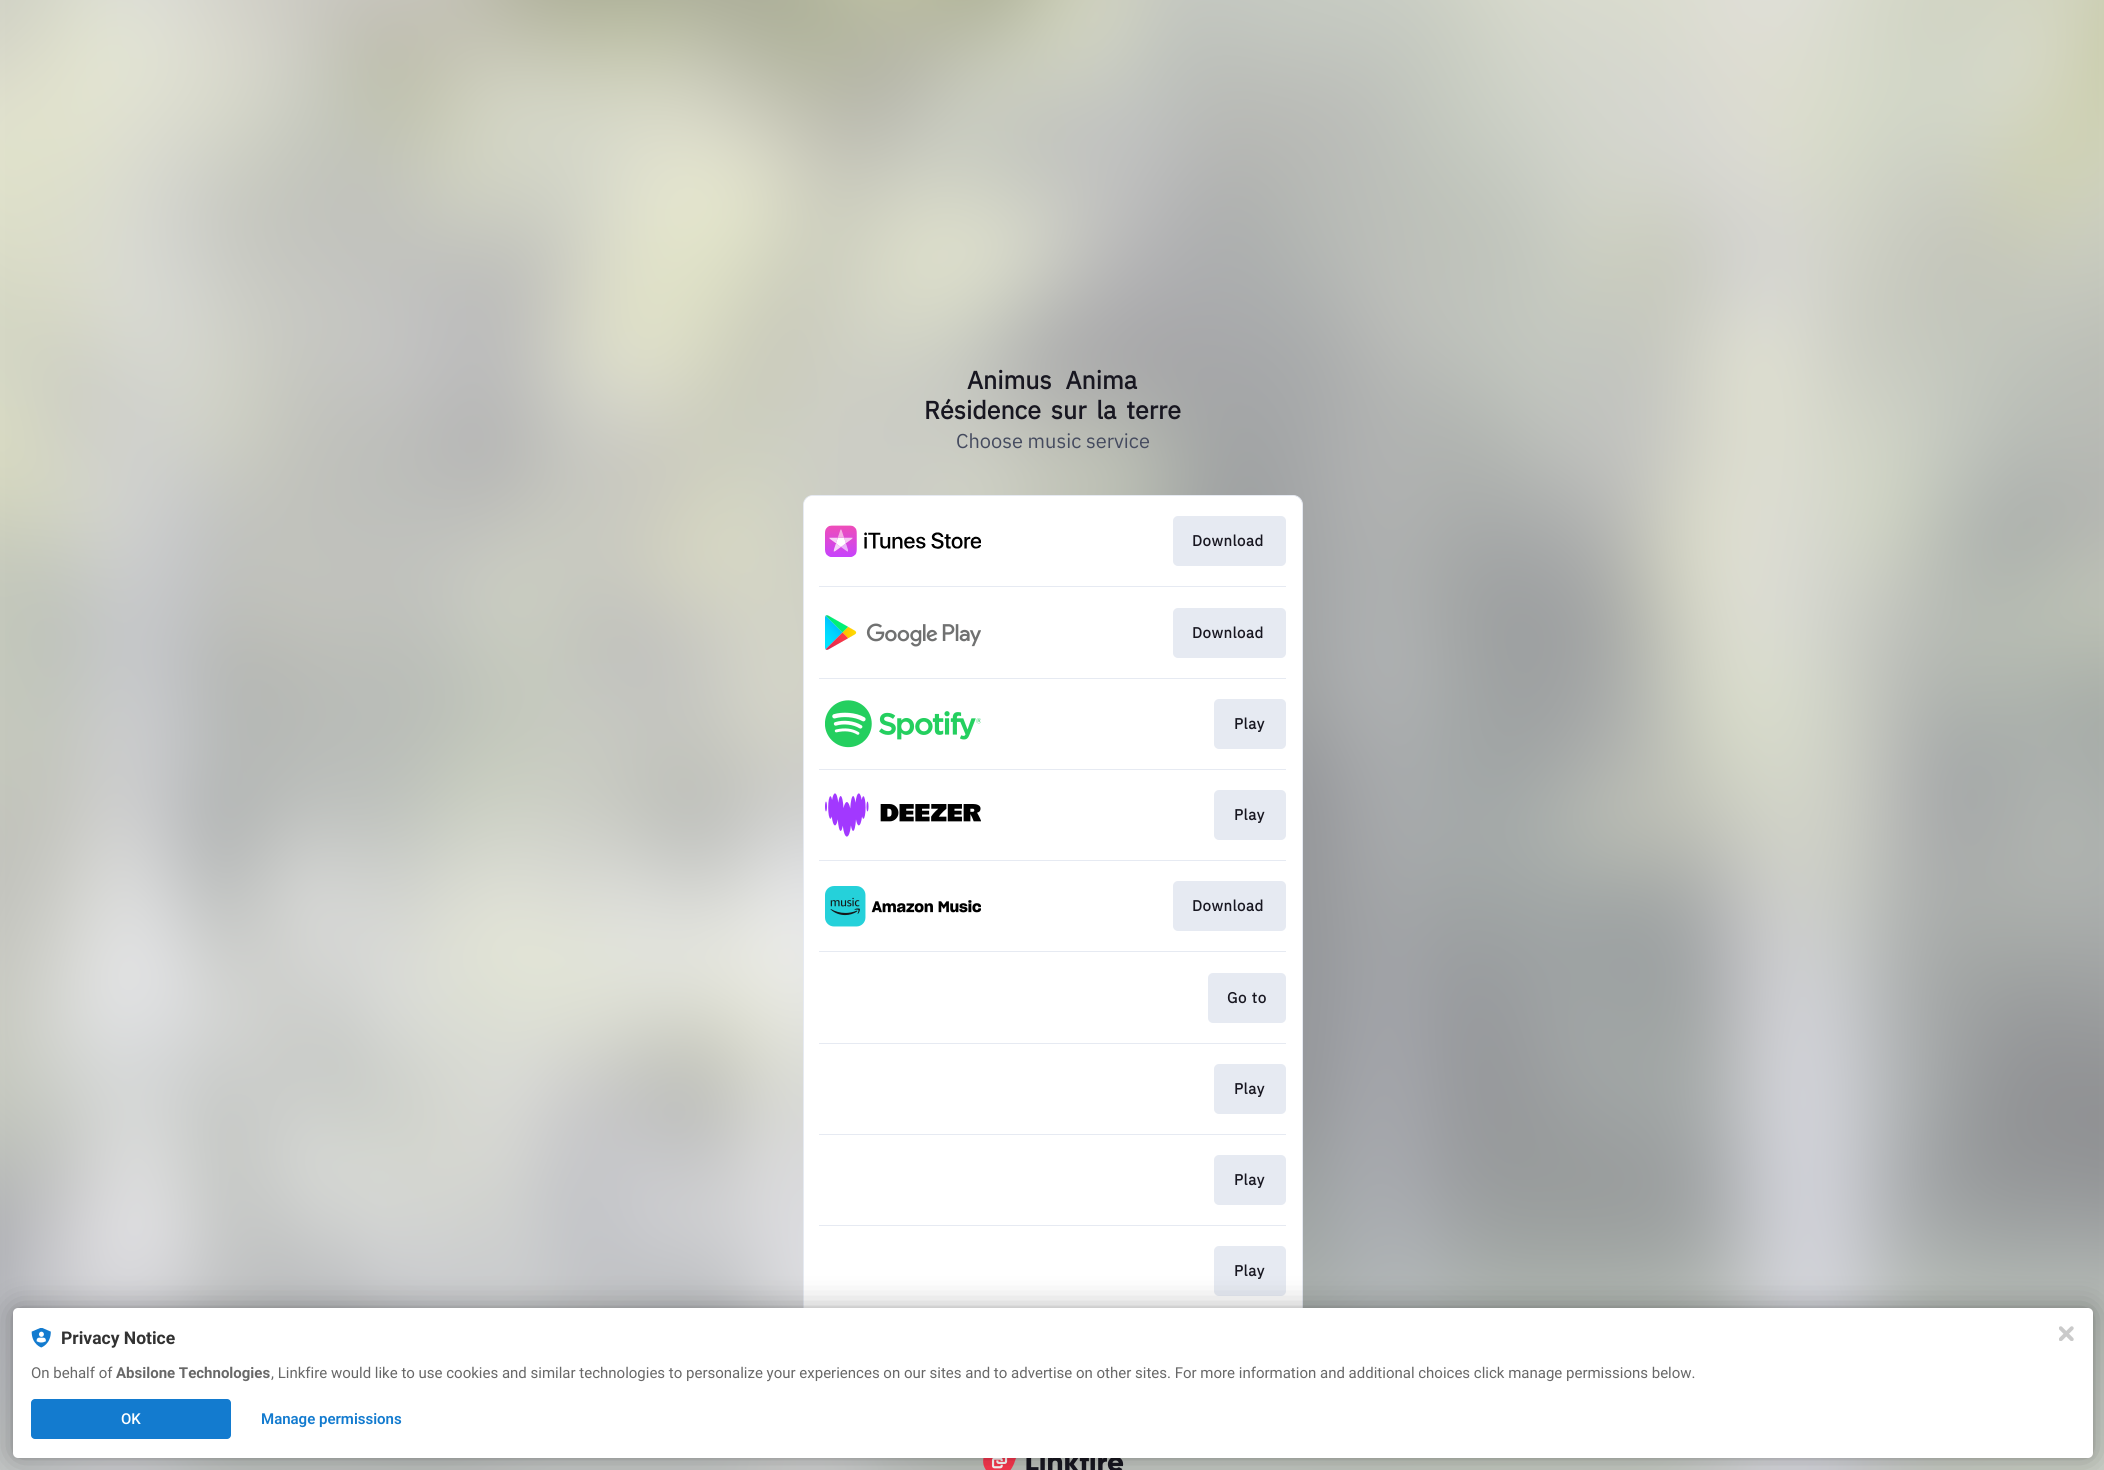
import math
import cairocffi as cairo

surface = cairo.ImageSurface(cairo.FORMAT_RGB24, 2104, 1470)
ctx = cairo.Context(surface)
options = cairo.FontOptions()
options.set_hint_metrics(cairo.HINT_METRICS_OFF)
options.set_hint_style(cairo.HINT_STYLE_NONE)
ctx.set_font_options(options)
ctx.set_miter_limit(4)


def rgb(r, g, b):
    ctx.set_source_rgb(r / 255, g / 255, b / 255)


def face(family, size, italic, bold):
    ctx.select_font_face(family, cairo.FONT_SLANT_ITALIC if italic else cairo.FONT_SLANT_NORMAL, cairo.FONT_WEIGHT_BOLD if bold else cairo.FONT_WEIGHT_NORMAL)
    ctx.set_font_size(size)


def label(x, y, s):
    ctx.move_to(x, y)
    ctx.show_text(s)


def tracked(x, y, s, letter, word):
    ctx.move_to(x, y)
    for ch in s:
        ctx.show_text(ch)
        ctx.rel_move_to(letter + word * (ch == ' '), 0)


def rect(x, y, w, h):
    ctx.rectangle(x, y, w, h)
    ctx.fill()


def rrect(x, y, w, h, r):
    ctx.new_sub_path()
    for i, (u, v) in enumerate([(x + w - r, y + h - r), (x + r, y + h - r), (x + r, y + r), (x + w - r, y + r)]):
        ctx.arc(u, v, r, i * math.pi / 2, (i + 1) * math.pi / 2)
    ctx.close_path()


def soft_shadow(x, y, w, h, r, blur, alpha):
    ctx.push_group_with_content(cairo.CONTENT_ALPHA)
    ctx.set_operator(cairo.OPERATOR_SOURCE)
    for i in range(15, -16, -2):
        e = blur * i / 6
        if min(w, h) + 2 * e > 0:
            ctx.set_source_rgba(0, 0, 0, alpha * math.erfc((i - 1) / 8.5) / 2)
            rrect(x - e, y - e, w + 2 * e, h + 2 * e, max(0, min(r + e + blur * .6, min(w, h) / 2 + e)))
            ctx.fill()
    ctx.mask(ctx.pop_group())


def image(path, x, y, w, h):
    ctx.save()
    ctx.set_source_surface(cairo.ImageSurface.create_from_png(path), x, y)
    ctx.rectangle(x, y, w, h)
    ctx.fill()
    ctx.restore()


rgb(255, 255, 255)
ctx.paint()
image('image0.png', 0, 0, 2104, 1470)
face('IBM Plex Sans', 25, 0, 1)
rgb(24, 23, 33)
tracked(967, 389, 'Animus Anima', 0, 8)
tracked(924, 419, 'Résidence sur la terre', 0, 4)
face('IBM Plex Sans', 20, 0, 0)
rgb(69, 75, 95)
label(956, 448, 'Choose music service')
rgb(255, 255, 255)
rrect(803.5, 495.5, 499, 822, 9.5)
ctx.fill_preserve()
rgb(230, 234, 242)
ctx.set_line_width(1)
ctx.stroke()
rgb(255, 255, 255)
rrect(804, 496, 497, 820, 9)
ctx.fill()
image('image1.png', 825, 525, 156, 32)
rgb(230, 234, 242)
rrect(1173, 516, 113, 50, 5)
ctx.fill()
face('IBM Plex Sans', 15, 0, 1)
rgb(24, 23, 33)
tracked(1192, 546, 'Download', 0.5, 0)
rgb(230, 234, 242)
rect(819, 586, 467, 1)
image('image2.png', 825, 615, 156, 35)
rrect(1173, 608, 113, 50, 5)
ctx.fill()
rgb(24, 23, 33)
tracked(1192, 638, 'Download', 0.5, 0)
rgb(230, 234, 242)
rect(819, 678, 467, 1)
image('image3.png', 825, 700, 156, 48)
rrect(1214, 699, 72, 50, 5)
ctx.fill()
rgb(24, 23, 33)
tracked(1234, 729, 'Play', 0.5, 0)
rgb(230, 234, 242)
rect(819, 769, 467, 1)
image('image4.png', 825, 793, 156, 44)
rrect(1214, 790, 72, 50, 5)
ctx.fill()
rgb(24, 23, 33)
tracked(1234, 820, 'Play', 0.5, 0)
rgb(230, 234, 242)
rect(819, 860, 467, 1)
image('image5.png', 825, 886, 156, 41)
rrect(1173, 881, 113, 50, 5)
ctx.fill()
rgb(24, 23, 33)
tracked(1192, 911, 'Download', 0.5, 0)
rgb(230, 234, 242)
rect(819, 951, 467, 1)
rrect(1208, 973, 78, 50, 5)
ctx.fill()
rgb(24, 23, 33)
tracked(1227, 1003, 'Go to', 0.5, 1)
rgb(230, 234, 242)
rect(819, 1043, 467, 1)
rrect(1214, 1064, 72, 50, 5)
ctx.fill()
rgb(24, 23, 33)
tracked(1234, 1094, 'Play', 0.5, 0)
rgb(230, 234, 242)
rect(819, 1134, 467, 1)
rrect(1214, 1155, 72, 50, 5)
ctx.fill()
rgb(24, 23, 33)
tracked(1234, 1185, 'Play', 0.5, 0)
rgb(230, 234, 242)
rect(819, 1225, 467, 1)
rrect(1214, 1246, 72, 50, 5)
ctx.fill()
rgb(24, 23, 33)
tracked(1234, 1276, 'Play', 0.5, 0)
image('image6.png', 983, 1458, 141, 12)
rgb(0, 0, 0)
soft_shadow(13, 1308, 2080, 150, 5, 2.5, 0.12)
soft_shadow(13, 1308, 2080, 150, 5, 15, 0.3)
rgb(255, 255, 255)
rrect(13, 1308, 2080, 150, 5)
ctx.fill()
image('image7.png', 31, 1328, 20, 20)
face('Roboto', 17.5, 0, 1)
rgb(50, 50, 50)
label(61, 1344, 'Privacy Notice')
face('Roboto', 15, 0, 0)
rgb(104, 104, 104)
label(31, 1378, 'On behalf of')
face('Roboto', 15, 0, 1)
label(116, 1378, 'Absilone Technologies')
face('Roboto', 15, 0, 0)
label(271, 1378, ', Linkfire would like to use cookies and similar technologies to personalize your experiences on our sites and to advertise on other sites. For more information and additional choices click manage permissions below.')
rgb(19, 123, 207)
rrect(31, 1399, 200, 40, 4)
ctx.fill()
face('Roboto Medium', 15, 0, 0)
rgb(255, 255, 255)
label(121, 1424, 'OK')
face('Roboto SemiBold', 15, 0, 0)
rgb(19, 123, 207)
label(261, 1424, 'Manage permissions')
image('image8.png', 2059, 1326, 15, 15)
surface.write_to_png('render.png')
